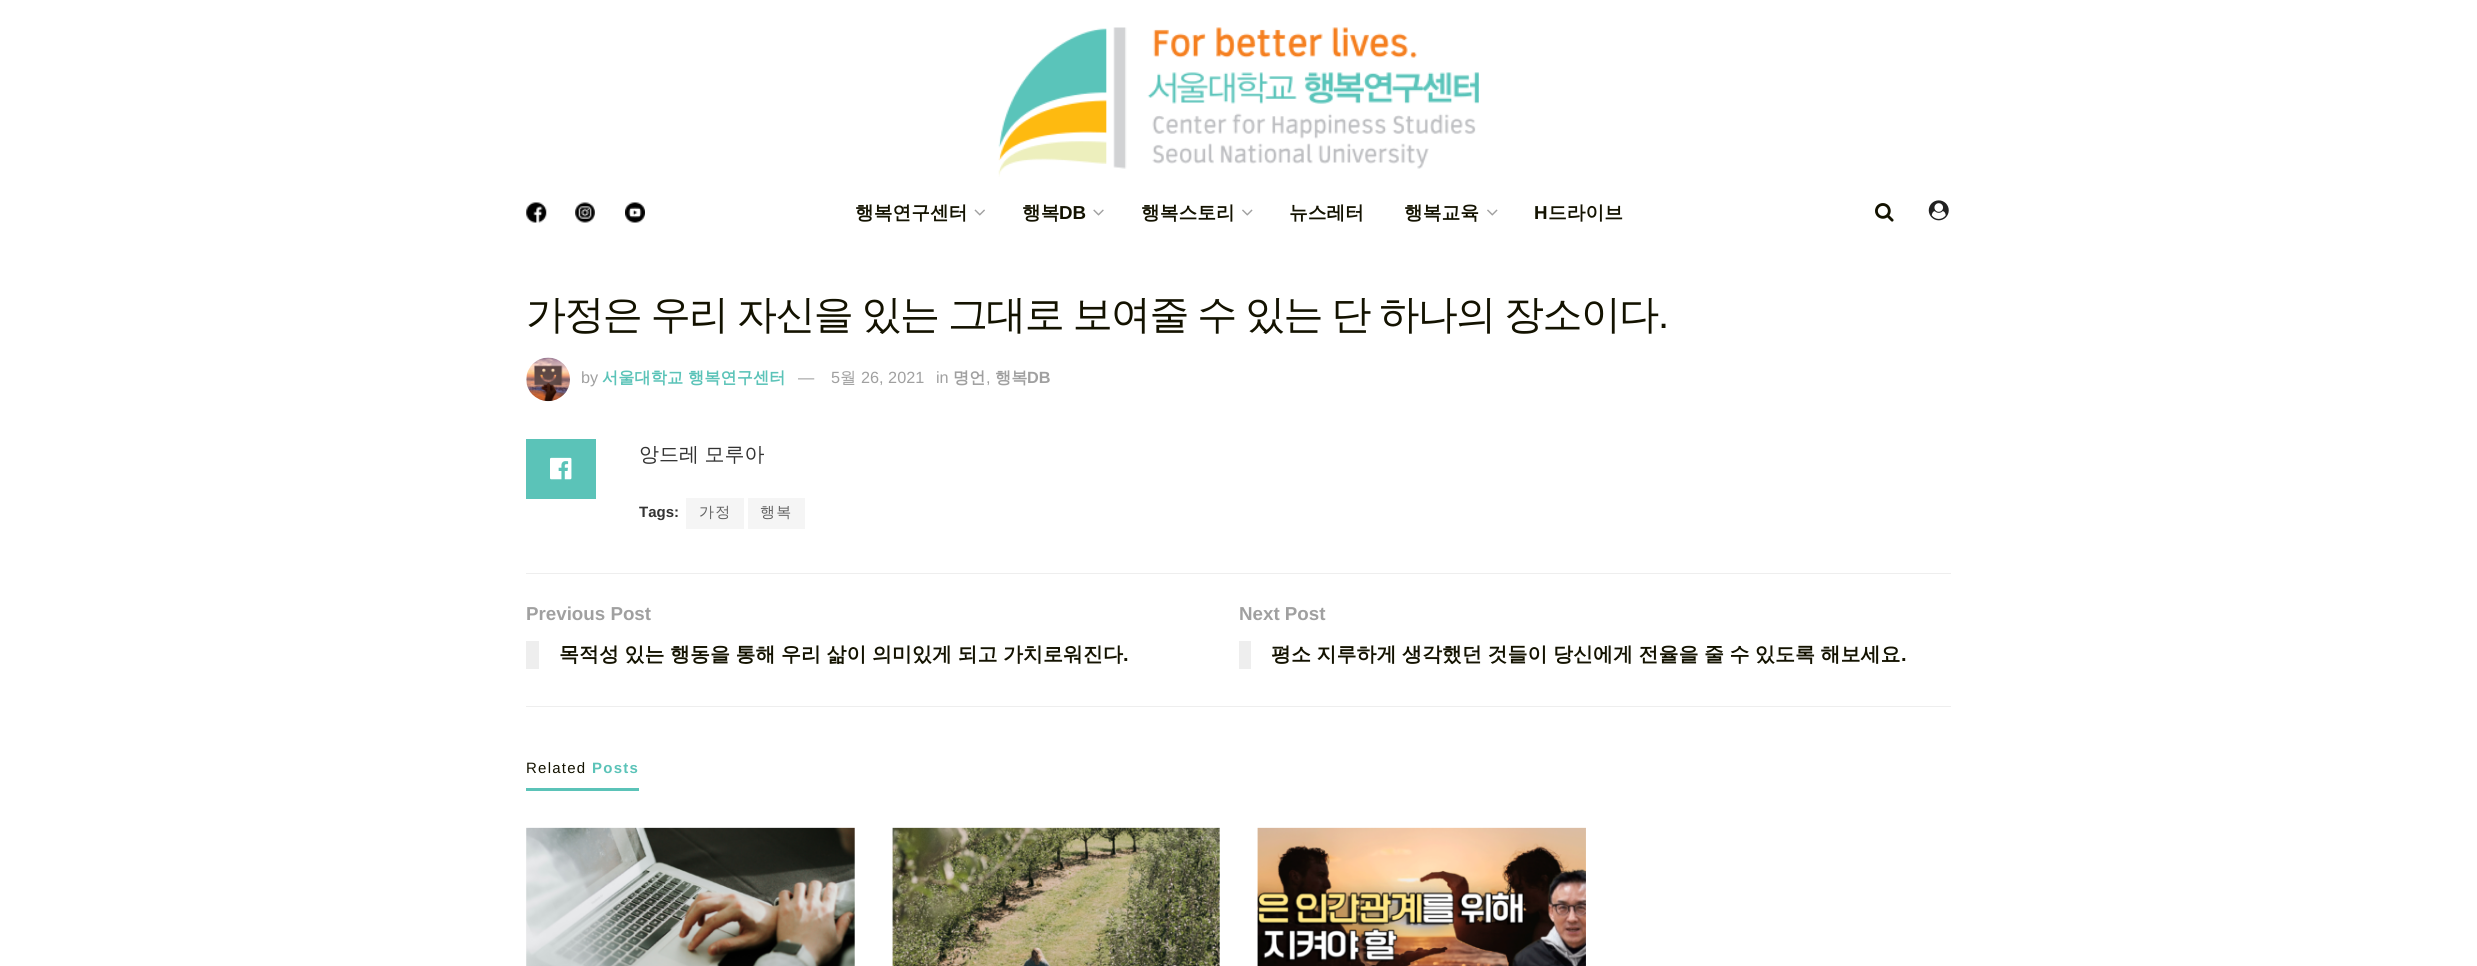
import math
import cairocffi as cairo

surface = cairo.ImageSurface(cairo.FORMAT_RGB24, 2477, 966)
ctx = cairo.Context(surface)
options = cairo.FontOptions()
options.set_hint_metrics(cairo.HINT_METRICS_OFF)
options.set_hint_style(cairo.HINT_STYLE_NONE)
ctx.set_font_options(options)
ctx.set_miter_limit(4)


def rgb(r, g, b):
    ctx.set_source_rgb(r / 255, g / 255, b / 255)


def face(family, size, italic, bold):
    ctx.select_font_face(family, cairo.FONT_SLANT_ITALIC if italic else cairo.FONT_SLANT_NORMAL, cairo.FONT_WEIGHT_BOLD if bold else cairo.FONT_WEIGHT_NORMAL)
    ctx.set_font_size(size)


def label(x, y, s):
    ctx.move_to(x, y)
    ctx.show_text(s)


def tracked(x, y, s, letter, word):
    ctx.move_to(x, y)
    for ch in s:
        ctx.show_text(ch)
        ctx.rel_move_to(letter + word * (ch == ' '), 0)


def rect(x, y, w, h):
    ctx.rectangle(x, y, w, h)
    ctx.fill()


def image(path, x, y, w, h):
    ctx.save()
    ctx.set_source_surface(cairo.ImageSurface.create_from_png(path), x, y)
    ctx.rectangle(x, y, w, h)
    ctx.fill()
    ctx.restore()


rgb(255, 255, 255)
ctx.paint()
image('image0.png', 998, 27, 481, 150)
image('image1.png', 526, 202, 21, 21)
image('image2.png', 575, 202, 20, 21)
image('image3.png', 625, 202, 20, 21)
face('WenQuanYi Zen Hei', 18.75, 0, 1)
rgb(19, 18, 0)
label(855, 219, '행복연구센터')
image('image4.png', 974, 209, 11, 7)
label(1022, 219, '행복')
face('Liberation Sans', 18.75, 0, 1)
label(1059, 219, 'DB')
image('image5.png', 1093, 209, 11, 7)
face('WenQuanYi Zen Hei', 18.75, 0, 1)
label(1141, 219, '행복스토리')
image('image6.png', 1242, 209, 11, 7)
label(1289, 219, '뉴스레터')
label(1404, 219, '행복교육')
image('image6.png', 1487, 209, 11, 7)
face('Liberation Sans', 18.75, 0, 1)
label(1534, 219, 'H')
face('WenQuanYi Zen Hei', 18.75, 0, 1)
label(1548, 219, '드라이브')
image('image7.png', 1875, 203, 19, 19)
image('image8.png', 1928, 200, 21, 21)
face('WenQuanYi Zen Hei Medium', 40, 0, 0)
tracked(526, 328, '가정은 우리 자신을 있는 그대로 보여줄 수 있는 단 하나의 장소이다', -1.6, -0.9)
face('Liberation Sans', 40, 0, 0)
tracked(1658, 328, '.', -1.6, 0)
image('image9.png', 526, 357, 44, 45)
face('Liberation Sans', 16.25, 0, 0)
rgb(160, 160, 160)
label(581, 383, 'by')
face('WenQuanYi Zen Hei', 16.25, 0, 1)
rgb(91, 195, 184)
label(602, 383, '서울대학교 행복연구센터')
face('Liberation Sans', 16.25, 0, 0)
rgb(160, 160, 160)
label(798, 383, '—')
label(831, 383, '5')
face('WenQuanYi Zen Hei Medium', 16.25, 0, 0)
label(840, 383, '월')
face('Liberation Sans', 16.25, 0, 0)
label(861, 383, '26, 2021')
label(936, 383, 'in')
face('WenQuanYi Zen Hei', 16.25, 0, 1)
label(953, 383, '명언')
label(995, 383, '행복')
face('Liberation Sans', 16.25, 0, 1)
label(1027, 383, 'DB')
face('Liberation Sans', 16.25, 0, 0)
label(986, 383, ',')
rgb(91, 195, 184)
rect(526, 439, 70, 60)
image('image10.png', 550, 457, 22, 23)
face('WenQuanYi Zen Hei Medium', 20, 0, 0)
rgb(51, 51, 51)
tracked(639, 461, '앙드레 모루아', 0, -0.5)
face('Liberation Sans', 15, 0, 1)
label(639, 517, 'Tags:')
rgb(245, 245, 245)
rect(686, 498, 58, 31)
face('WenQuanYi Zen Hei Medium', 15, 0, 0)
rgb(97, 97, 97)
tracked(699, 517, '가정', 1.25, 0)
rgb(245, 245, 245)
rect(748, 498, 57, 31)
rgb(97, 97, 97)
tracked(760, 517, '행복', 1.25, 0)
rgb(238, 238, 238)
rect(526, 573, 1425, 1)
rect(526, 706, 1425, 1)
face('Liberation Sans', 18.75, 0, 1)
rgb(160, 160, 160)
label(526, 620, 'Previous Post')
rgb(238, 238, 238)
rect(526, 641, 13, 28)
face('WenQuanYi Zen Hei', 20, 0, 1)
rgb(19, 18, 0)
tracked(559, 661, '목적성 있는 행동을 통해 우리 삶이 의미있게 되고 가치로워진다', 0, -0.5)
face('Liberation Sans', 20, 0, 1)
label(1123, 661, '.')
face('Liberation Sans', 18.75, 0, 1)
rgb(160, 160, 160)
label(1239, 620, 'Next Post')
rgb(238, 238, 238)
rect(1239, 641, 12, 28)
face('WenQuanYi Zen Hei', 20, 0, 1)
rgb(19, 18, 0)
tracked(1271, 661, '평소 지루하게 생각했던 것들이 당신에게 전율을 줄 수 있도록 해보세요', 0, -0.5)
face('Liberation Sans', 20, 0, 1)
label(1901, 661, '.')
rgb(91, 195, 184)
rect(526, 788, 113, 3)
face('Liberation Sans', 15, 0, 0)
rgb(19, 18, 0)
tracked(526, 773, 'Related', 1.25, 0)
face('Liberation Sans', 15, 0, 1)
rgb(91, 195, 184)
tracked(592, 773, 'Posts', 1.25, 0)
rgb(247, 247, 247)
rect(526, 828, 329, 138)
image('image11.png', 526, 827, 329, 139)
rect(1219, 828, 1, 138)
image('image12.png', 892, 827, 328, 139)
image('image13.png', 1257, 827, 329, 139)
surface.write_to_png('render.png')
